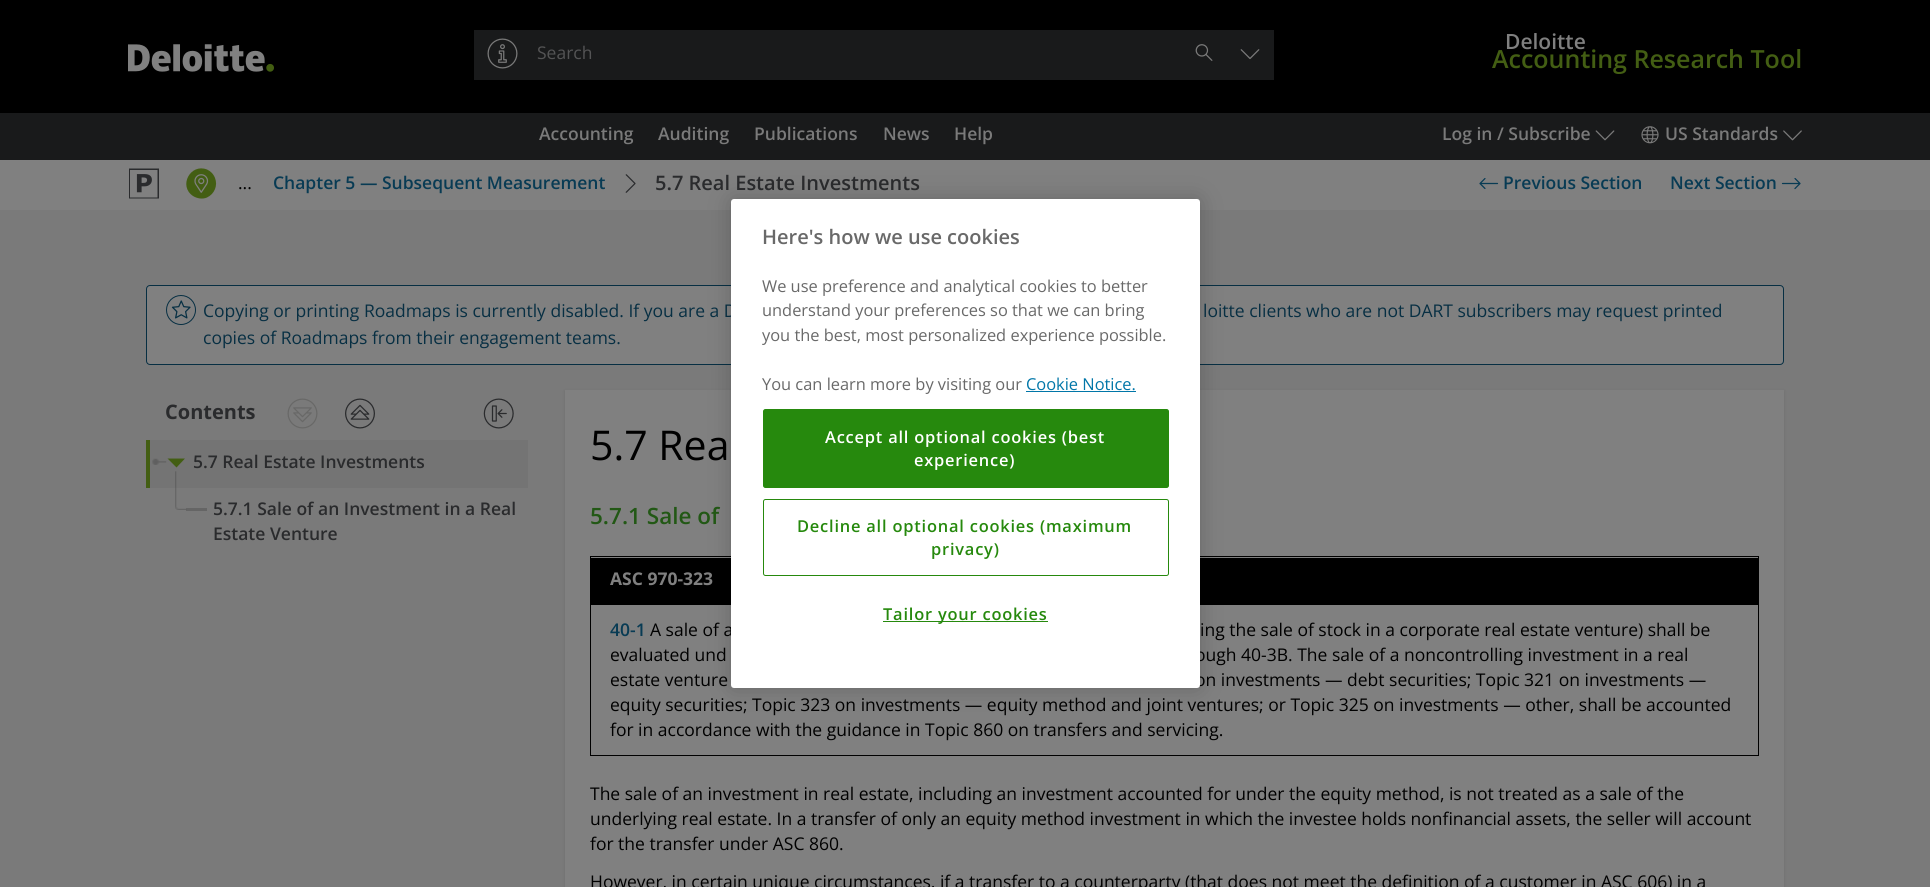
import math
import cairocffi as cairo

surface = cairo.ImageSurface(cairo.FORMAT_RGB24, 1930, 887)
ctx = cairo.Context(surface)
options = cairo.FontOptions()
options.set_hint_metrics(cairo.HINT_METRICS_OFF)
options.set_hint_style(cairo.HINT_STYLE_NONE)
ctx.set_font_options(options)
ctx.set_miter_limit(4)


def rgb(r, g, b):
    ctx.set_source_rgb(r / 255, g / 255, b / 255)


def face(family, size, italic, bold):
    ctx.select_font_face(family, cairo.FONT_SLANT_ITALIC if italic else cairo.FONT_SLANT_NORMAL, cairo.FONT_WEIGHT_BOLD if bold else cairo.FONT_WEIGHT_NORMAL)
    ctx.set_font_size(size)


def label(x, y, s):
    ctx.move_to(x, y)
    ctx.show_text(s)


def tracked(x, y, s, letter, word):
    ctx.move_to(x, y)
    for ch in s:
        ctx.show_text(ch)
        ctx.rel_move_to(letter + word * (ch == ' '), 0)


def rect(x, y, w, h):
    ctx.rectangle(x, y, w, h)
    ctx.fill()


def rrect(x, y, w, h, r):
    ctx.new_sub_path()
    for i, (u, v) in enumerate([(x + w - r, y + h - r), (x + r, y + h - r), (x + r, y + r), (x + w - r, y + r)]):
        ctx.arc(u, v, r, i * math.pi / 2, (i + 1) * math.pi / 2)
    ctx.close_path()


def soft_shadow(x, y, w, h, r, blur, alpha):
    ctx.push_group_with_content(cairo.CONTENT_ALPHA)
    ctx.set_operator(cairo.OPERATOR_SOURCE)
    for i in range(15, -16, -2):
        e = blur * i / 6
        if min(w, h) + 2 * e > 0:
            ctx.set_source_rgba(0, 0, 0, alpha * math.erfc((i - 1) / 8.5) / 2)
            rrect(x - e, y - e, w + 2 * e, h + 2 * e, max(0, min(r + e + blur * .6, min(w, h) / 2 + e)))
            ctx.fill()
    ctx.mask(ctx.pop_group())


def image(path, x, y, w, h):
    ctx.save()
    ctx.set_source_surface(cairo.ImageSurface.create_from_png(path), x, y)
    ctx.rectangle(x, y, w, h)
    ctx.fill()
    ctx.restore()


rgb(0, 0, 0)
ctx.paint()
image('image0.png', 128, 44, 137, 28)
image('image1.png', 266, 63, 8, 9)
rgb(25, 26, 27)
rect(474, 30, 800, 50)
image('image2.png', 487, 38, 31, 31)
image('image3.png', 498, 44, 9, 19)
face('Open Sans', 17.5, 0, 0)
rgb(84, 84, 85)
label(537, 59, 'Search')
image('image4.png', 1195, 44, 18, 17)
image('image5.png', 1240, 49, 20, 11)
face('Open Sans SemiBold', 21, 0, 0)
rgb(128, 128, 128)
label(1505, 49, 'Deloitte')
face('Open Sans SemiBold', 25, 0, 0)
rgb(67, 94, 19)
label(1492, 68, 'Accounting Research Tool')
rgb(25, 26, 27)
rect(0, 113, 1930, 47)
face('Open Sans SemiBold', 17.5, 0, 0)
rgb(122, 122, 122)
label(539, 140, 'Accounting')
label(658, 140, 'Auditing')
label(754, 140, 'Publications')
label(883, 140, 'News')
label(954, 140, 'Help')
label(1442, 140, 'Log in / Subscribe')
image('image6.png', 1595, 130, 20, 11)
image('image7.png', 1641, 126, 18, 18)
label(1665, 140, 'US Standards')
image('image8.png', 1783, 130, 19, 11)
rect(0, 210, 1930, 677)
rgb(128, 128, 128)
rect(0, 160, 1930, 50)
rgb(42, 43, 45)
ctx.new_path()
ctx.move_to(129, 168.5)
ctx.line_to(159, 168.5)
ctx.line_to(159, 198.5)
ctx.line_to(129, 198.5)
ctx.close_path()
ctx.move_to(130, 170)
ctx.line_to(130, 197.5)
ctx.line_to(157.5, 197.5)
ctx.line_to(157.5, 170)
ctx.close_path()
ctx.fill()
image('image9.png', 136, 174, 16, 19)
rgb(67, 94, 19)
ctx.new_path()
ctx.move_to(215, 178)
ctx.curve_to(218, 185.5, 214.5, 194, 207, 197.5)
ctx.curve_to(202.5, 199.5, 197, 198.5, 193, 196)
ctx.curve_to(178, 186, 190.5, 163, 207, 169.5)
ctx.curve_to(210.5, 171, 213.5, 174, 215, 178)
ctx.close_path()
ctx.fill()
image('image10.png', 194, 174, 15, 19)
face('Open Sans', 17.5, 0, 0)
rgb(0, 0, 0)
label(238, 189, '...')
face('Open Sans SemiBold', 17.5, 0, 0)
rgb(8, 59, 84)
label(273, 189, 'Chapter 5 — Subsequent Measurement')
image('image11.png', 625, 174, 11, 19)
face('Open Sans SemiBold', 20, 0, 0)
rgb(42, 43, 45)
label(655, 190, '5.7 Real Estate Investments')
image('image12.png', 1479, 178, 20, 11)
face('Open Sans SemiBold', 17.5, 0, 0)
rgb(8, 59, 84)
label(1503, 189, 'Previous Section')
label(1670, 189, 'Next Section')
image('image13.png', 1781, 178, 20, 12)
rgb(128, 128, 128)
rrect(146.5, 285.5, 1637, 79, 3.5)
ctx.fill_preserve()
rgb(7, 47, 67)
ctx.set_line_width(1)
ctx.stroke()
ctx.arc(181, 310, 14.5, 0, 2 * math.pi)
ctx.stroke()
image('image14.png', 171, 300, 20, 19)
face('Open Sans', 17.5, 0, 0)
label(203, 317, 'Copying or printing Roadmaps is currently disabled. If you are a D')
label(1203, 317, 'loitte clients who are not DART subscribers may request printed')
label(203, 344, 'copies of Roadmaps from their engagement teams.')
face('Open Sans', 20, 0, 1)
rgb(42, 43, 45)
label(165, 419, 'Contents')
image('image15.png', 287, 398, 31, 31)
image('image16.png', 293, 407, 19, 16)
image('image17.png', 345, 398, 30, 31)
image('image18.png', 350, 404, 20, 16)
image('image19.png', 483, 398, 31, 31)
image('image20.png', 491, 405, 16, 17)
rgb(116, 116, 116)
rect(150, 440, 378, 48)
rgb(67, 94, 19)
rect(146, 440, 4, 48)
image('image21.png', 152, 458, 15, 7)
image('image22.png', 175, 471, 2, 17)
ctx.new_path()
ctx.move_to(185, 458.5)
ctx.line_to(176.5, 467.5)
ctx.line_to(167.5, 458.5)
ctx.close_path()
ctx.fill()
face('Open Sans SemiBold', 17.5, 0, 0)
rgb(42, 43, 45)
label(193, 468, '5.7 Real Estate Investments')
image('image23.png', 175, 487, 12, 23)
ctx.set_source_rgba(0, 0, 0, 0.17)
rect(186, 508, 21, 3)
rgb(42, 43, 45)
label(213, 515, '5.7.1 Sale of an Investment in a Real')
label(213, 540, 'Estate Venture')
rgb(0, 0, 0)
soft_shadow(565, 391, 1219, 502, 0, 2, 0.1)
rgb(128, 128, 128)
rect(565, 390, 1219, 497)
face('Open Sans', 41, 0, 0)
rgb(0, 0, 0)
label(590, 460, '5.7 Rea')
face('Open Sans SemiBold', 22.5, 0, 0)
rgb(34, 88, 21)
label(590, 524, '5.7.1 Sale of')
ctx.rectangle(590.5, 556.5, 1168, 199)
rgb(0, 0, 0)
ctx.stroke()
rect(591, 558, 1167, 47)
face('Open Sans', 17.5, 0, 1)
rgb(128, 128, 128)
label(610, 585, 'ASC 970-323')
face('Open Sans SemiBold', 17.5, 0, 0)
rgb(8, 59, 84)
label(610, 636, '40-1')
face('Open Sans', 17.5, 0, 0)
rgb(0, 0, 0)
label(650, 636, 'A sale of a')
label(1200, 636, 'ing the sale of stock in a corporate real estate venture) shall be')
label(610, 661, 'evaluated und')
label(1195, 661, 'ough 40-3B. The sale of a noncontrolling investment in a real')
label(610, 686, 'estate venture')
label(1195, 686, 'on investments — debt securities; Topic 321 on investments —')
label(610, 711, 'equity securities; Topic 323 on investments — equity method and joint ventures; or Topic 325 on investments — other, shall be accounted')
label(610, 736, 'for in accordance with the guidance in Topic 860 on transfers and servicing.')
label(590, 800, 'The sale of an investment in real estate, including an investment accounted for under the equity method, is not treated as a sale of the')
label(590, 825, 'underlying real estate. In a transfer of only an equity method investment in which the investee holds nonfinancial assets, the seller will account')
label(590, 850, 'for the transfer under ASC 860.')
label(590, 888, 'However, in certain unique circumstances, if a transfer to a counterparty (that does not meet the definition of a customer in ASC 606) in a')
rgb(0, 0, 0)
soft_shadow(731, 199, 469, 489, 3, 11, 0.2)
rgb(255, 255, 255)
rrect(731, 199, 469, 489, 3)
ctx.fill()
face('Open Sans SemiBold', 20, 0, 0)
rgb(105, 105, 105)
label(762, 244, 'Here\'s how we use cookies')
face('Open Sans', 16.4, 0, 0)
label(762, 292, 'We use preference and analytical cookies to better')
label(762, 316, 'understand your preferences so that we can bring')
label(762, 341, 'you the best, most personalized experience possible.')
label(762, 390, 'You can learn more by visiting our')
rgb(0, 118, 168)
label(1026, 390, 'Cookie Notice.')
rect(1026, 391, 110, 1)
rgb(38, 137, 13)
rrect(763.5, 409.5, 405, 78, 2)
ctx.fill_preserve()
ctx.stroke()
face('Open Sans SemiBold', 16.4, 0, 0)
rgb(255, 255, 255)
tracked(825, 443, 'Accept all optional cookies (best', 0.8, 0)
tracked(914, 466, 'experience)', 0.8, 0)
rrect(763.5, 499.5, 405, 76, 2)
rgb(38, 137, 13)
ctx.stroke()
tracked(797, 532, 'Decline all optional cookies (maximum', 0.8, 0)
tracked(931, 555, 'privacy)', 0.8, 0)
rect(883, 621, 165, 1)
tracked(883, 620, 'Tailor your cookies', 0.8, 0)
surface.write_to_png('render.png')
